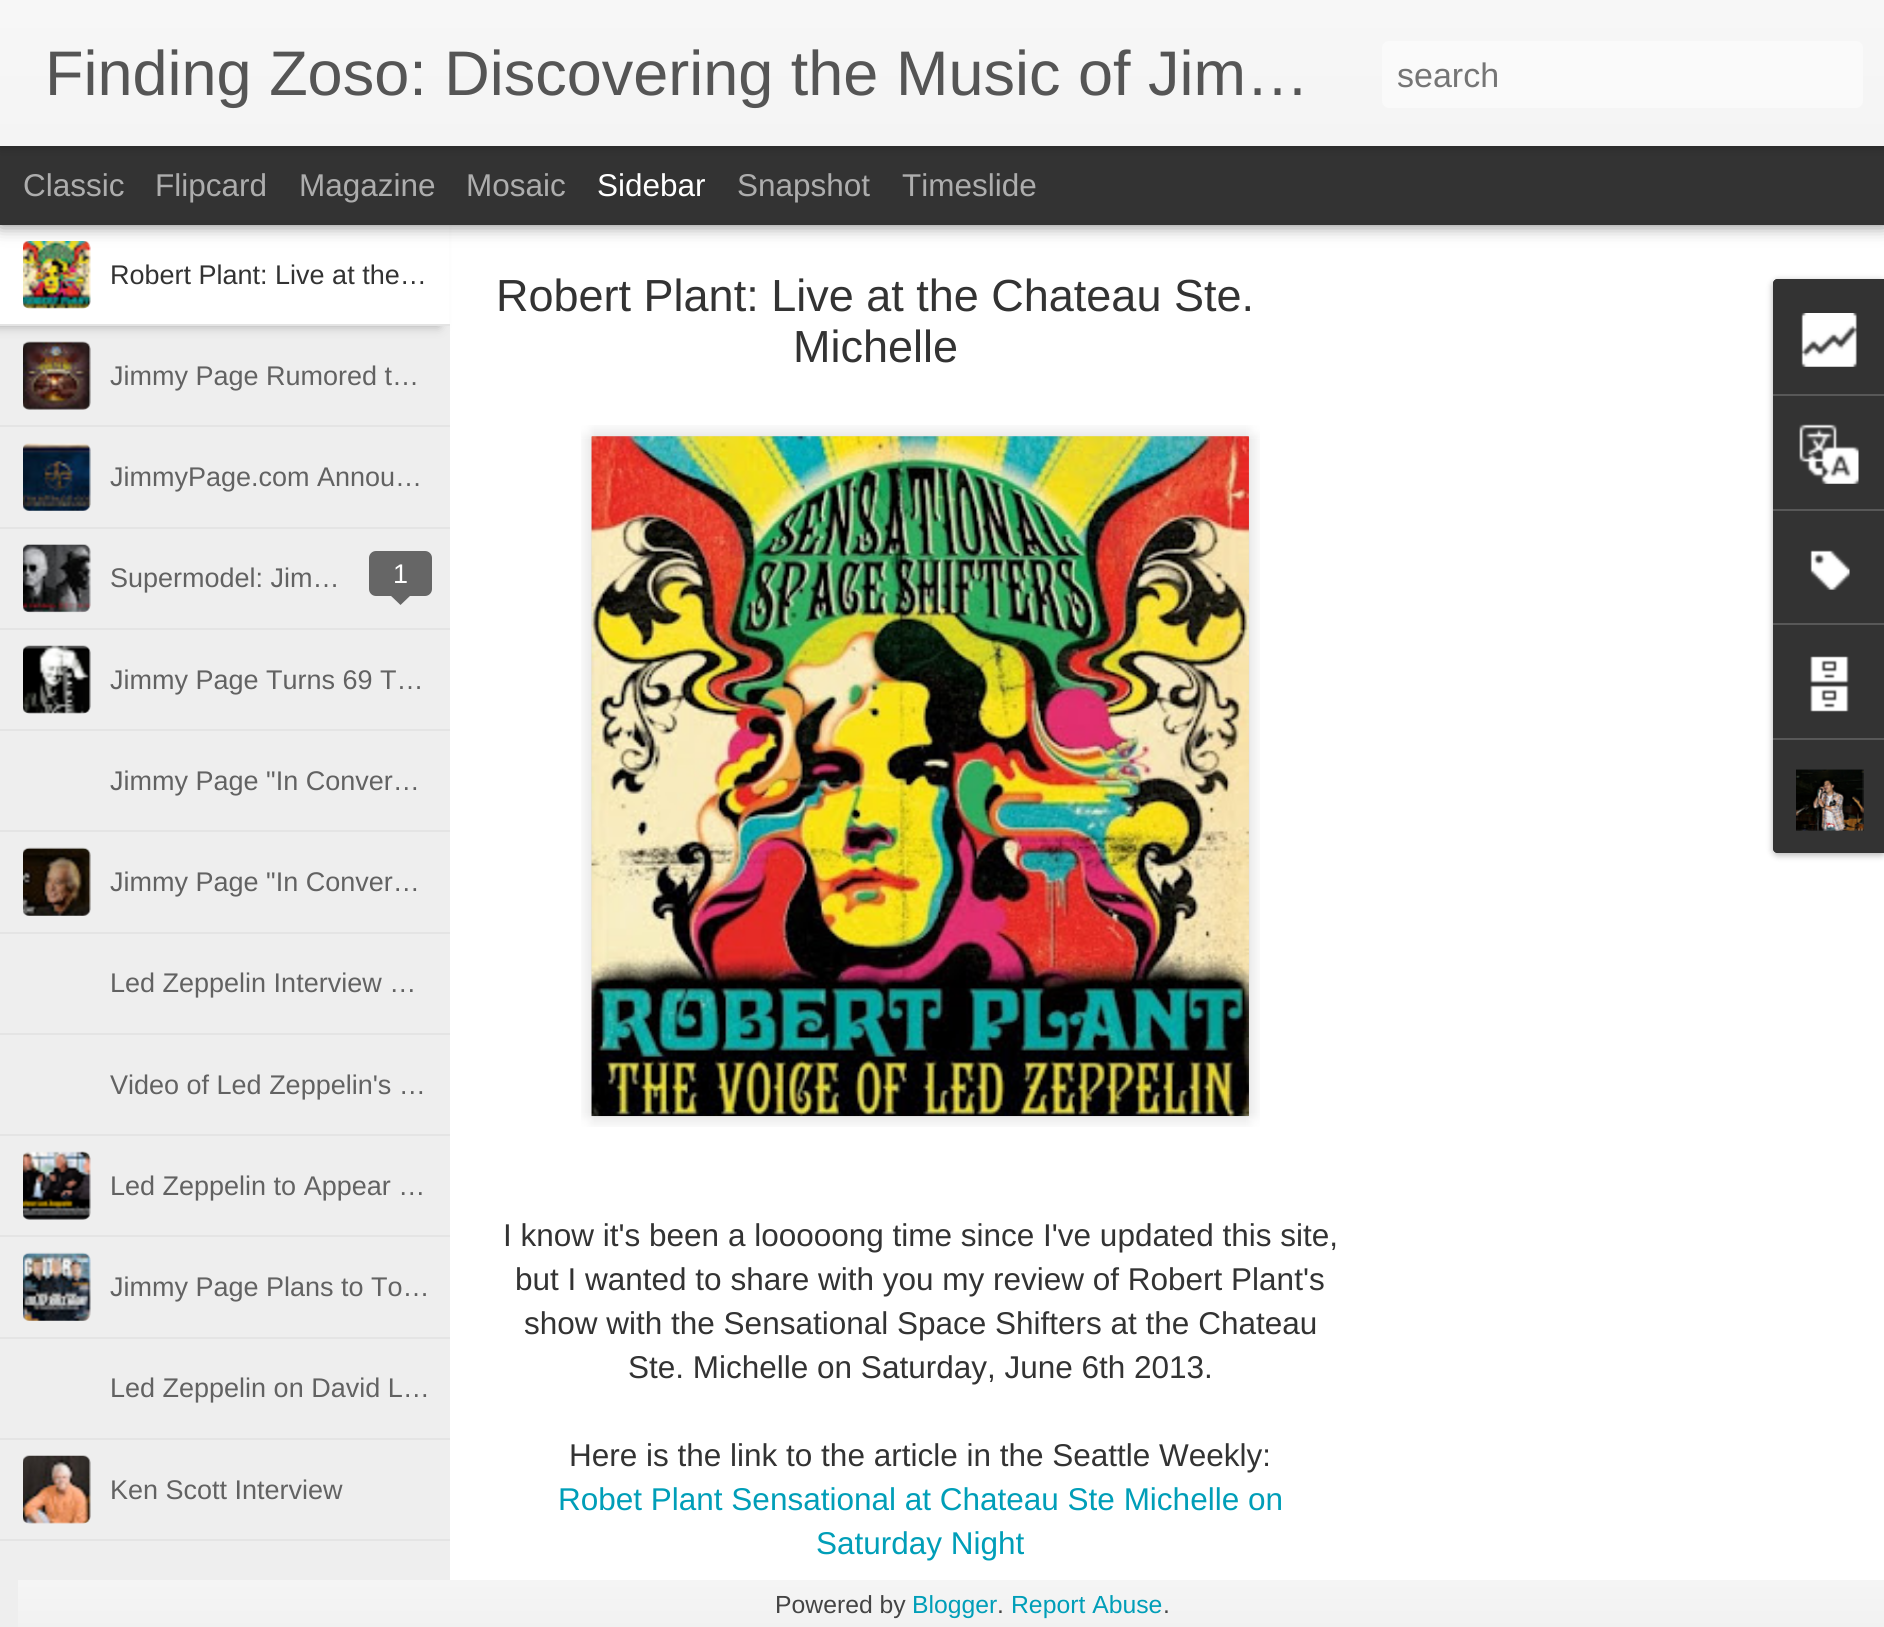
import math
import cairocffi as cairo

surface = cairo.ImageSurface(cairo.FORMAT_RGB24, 1884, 1627)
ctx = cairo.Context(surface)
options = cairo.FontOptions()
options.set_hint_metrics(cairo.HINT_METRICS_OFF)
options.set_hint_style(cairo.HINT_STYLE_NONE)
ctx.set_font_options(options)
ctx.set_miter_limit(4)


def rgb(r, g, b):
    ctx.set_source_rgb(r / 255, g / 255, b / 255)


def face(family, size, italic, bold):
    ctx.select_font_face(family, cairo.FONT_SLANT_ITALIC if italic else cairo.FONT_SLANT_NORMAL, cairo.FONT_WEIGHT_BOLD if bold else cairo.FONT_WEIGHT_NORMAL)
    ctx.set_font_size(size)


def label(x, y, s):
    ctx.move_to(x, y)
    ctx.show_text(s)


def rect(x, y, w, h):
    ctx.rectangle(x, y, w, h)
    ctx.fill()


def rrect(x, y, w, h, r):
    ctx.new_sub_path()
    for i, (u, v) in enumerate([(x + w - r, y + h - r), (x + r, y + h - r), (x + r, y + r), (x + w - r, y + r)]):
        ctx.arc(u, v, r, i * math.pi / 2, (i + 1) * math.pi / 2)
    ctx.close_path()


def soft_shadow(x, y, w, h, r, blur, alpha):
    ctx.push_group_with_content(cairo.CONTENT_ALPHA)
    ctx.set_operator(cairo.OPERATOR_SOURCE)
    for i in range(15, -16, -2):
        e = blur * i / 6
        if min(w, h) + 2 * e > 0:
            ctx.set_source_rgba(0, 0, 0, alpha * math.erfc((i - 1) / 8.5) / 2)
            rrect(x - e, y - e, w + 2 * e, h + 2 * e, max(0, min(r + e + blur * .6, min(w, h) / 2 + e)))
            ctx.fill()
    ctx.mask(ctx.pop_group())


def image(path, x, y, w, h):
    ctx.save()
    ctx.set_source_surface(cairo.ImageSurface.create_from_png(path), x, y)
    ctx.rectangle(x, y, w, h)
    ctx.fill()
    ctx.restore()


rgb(255, 255, 255)
ctx.paint()
rgb(238, 238, 238)
rect(0, 326, 450, 1301)
image('image1.png', 23, 341, 68, 69)
rgb(170, 170, 170)
soft_shadow(-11, 225, 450, 101, 0, 5.5, 1)
rgb(255, 255, 255)
rect(0, 225, 449, 99)
image('image0.png', 23, 241, 68, 68)
rgb(0, 0, 0)
soft_shadow(0, 146, 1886, 79, 0, 9, 0.5)
rgb(51, 51, 51)
rect(0, 146, 1884, 79)
rgb(0, 0, 0)
soft_shadow(0, 0, 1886, 146, 0, 5.5, 0.3)
gradient = cairo.LinearGradient(0, 0, 0, 146)
gradient.add_color_stop_rgba(0, 0.969, 0.969, 0.969, 1)
gradient.add_color_stop_rgba(1, 0.957, 0.957, 0.957, 1)
ctx.set_source(gradient)
rect(0, 0, 1884, 146)
face('Liberation Sans', 63, 0, 0)
rgb(85, 85, 85)
label(45, 95, 'Finding Zoso: Discovering the Music of Jim…')
rgb(250, 250, 250)
rrect(1382, 41, 481, 67, 7)
ctx.fill()
face('Liberation Sans', 34, 0, 0)
rgb(117, 117, 117)
label(1397, 87, 'search')
face('Liberation Sans', 31.5, 0, 0)
rgb(173, 173, 173)
label(23, 196, 'Classic')
label(155, 196, 'Flipcard')
label(299, 196, 'Magazine')
label(466, 196, 'Mosaic')
rgb(255, 255, 255)
label(597, 196, 'Sidebar')
rgb(173, 173, 173)
label(737, 196, 'Snapshot')
label(902, 196, 'Timeslide')
rgb(228, 228, 228)
rect(0, 324, 450, 2)
face('Liberation Sans', 27, 0, 0)
rgb(51, 51, 51)
label(110, 284, 'Robert Plant: Live at the…')
rgb(228, 228, 228)
rect(0, 425, 450, 2)
rgb(98, 98, 98)
label(110, 385, 'Jimmy Page Rumored t…')
rgb(228, 228, 228)
rect(0, 527, 450, 2)
image('image2.png', 23, 443, 68, 68)
rgb(98, 98, 98)
label(110, 486, 'JimmyPage.com Annou…')
rgb(228, 228, 228)
rect(0, 628, 450, 2)
image('image3.png', 23, 544, 68, 69)
rgb(98, 98, 98)
label(110, 587, 'Supermodel: Jim…')
rgb(102, 102, 102)
rrect(370, 552, 61, 43, 6)
ctx.fill_preserve()
ctx.stroke()
rgb(255, 255, 255)
label(393, 583, '1')
rgb(102, 102, 102)
ctx.new_path()
ctx.move_to(389, 594)
ctx.line_to(412, 594)
ctx.line_to(400.5, 605)
ctx.close_path()
ctx.fill()
rgb(228, 228, 228)
rect(0, 729, 450, 2)
image('image4.png', 23, 645, 68, 69)
rgb(98, 98, 98)
label(110, 689, 'Jimmy Page Turns 69 T…')
rgb(228, 228, 228)
rect(0, 830, 450, 2)
rgb(98, 98, 98)
label(110, 790, 'Jimmy Page "In Conver…')
rgb(228, 228, 228)
rect(0, 932, 450, 2)
image('image5.png', 23, 847, 68, 69)
rgb(98, 98, 98)
label(110, 891, 'Jimmy Page "In Conver…')
rgb(228, 228, 228)
rect(0, 1033, 450, 2)
rgb(98, 98, 98)
label(110, 992, 'Led Zeppelin Interview …')
rgb(228, 228, 228)
rect(0, 1134, 450, 2)
rgb(98, 98, 98)
label(110, 1094, 'Video of Led Zeppelin\'s …')
rgb(228, 228, 228)
rect(0, 1235, 450, 2)
image('image6.png', 23, 1151, 68, 69)
rgb(98, 98, 98)
label(110, 1195, 'Led Zeppelin to Appear …')
rgb(228, 228, 228)
rect(0, 1337, 450, 2)
image('image7.png', 23, 1252, 68, 69)
rgb(98, 98, 98)
label(110, 1296, 'Jimmy Page Plans to To…')
rgb(228, 228, 228)
rect(0, 1438, 450, 2)
rgb(98, 98, 98)
label(110, 1397, 'Led Zeppelin on David L…')
rgb(228, 228, 228)
rect(0, 1539, 450, 2)
image('image8.png', 23, 1455, 68, 69)
rgb(98, 98, 98)
label(110, 1499, 'Ken Scott Interview')
face('Liberation Sans', 45, 0, 0)
rgb(51, 51, 51)
label(496, 311, 'Robert Plant: Live at the Chateau Ste.')
label(793, 362, 'Michelle')
image('image9.png', 581, 425, 679, 702)
image('image10.png', 591, 436, 658, 680)
face('Liberation Sans', 31.5, 0, 0)
label(503, 1246, 'I know it\'s been a looooong time since I\'ve updated this site,')
label(515, 1290, 'but I wanted to share with you my review of Robert Plant\'s')
label(524, 1334, 'show with the Sensational Space Shifters at the Chateau')
label(628, 1378, 'Ste. Michelle on Saturday, June 6th 2013.')
label(569, 1466, 'Here is the link to the article in the Seattle Weekly:')
rgb(0, 158, 184)
label(558, 1510, 'Robet Plant Sensational at Chateau Ste Michelle on')
label(816, 1554, 'Saturday Night')
rgb(0, 0, 0)
soft_shadow(1773, 281, 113, 574, 5, 3.5, 0.3)
rgb(51, 51, 51)
ctx.new_path()
ctx.move_to(1778, 279)
ctx.line_to(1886, 279)
ctx.line_to(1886, 853)
ctx.line_to(1778, 853)
ctx.curve_to(1775, 853, 1773, 851, 1773, 848)
ctx.line_to(1773, 284)
ctx.curve_to(1773, 281, 1775, 279, 1778, 279)
ctx.close_path()
ctx.fill()
ctx.new_path()
ctx.move_to(1778, 279)
ctx.line_to(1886, 279)
ctx.line_to(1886, 394)
ctx.line_to(1773, 394)
ctx.line_to(1773, 284)
ctx.curve_to(1773, 281, 1775, 279, 1778, 279)
ctx.close_path()
ctx.fill()
image('image11.png', 1801, 313, 56, 54)
rgb(88, 88, 88)
rect(1773, 394, 111, 2)
image('image12.png', 1799, 424, 60, 60)
rect(1773, 509, 111, 2)
image('image13.png', 1810, 550, 40, 40)
rect(1773, 623, 111, 2)
image('image14.png', 1810, 656, 39, 56)
rgb(51, 51, 51)
ctx.new_path()
ctx.move_to(1773, 738)
ctx.line_to(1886, 738)
ctx.line_to(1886, 853)
ctx.line_to(1778, 853)
ctx.curve_to(1775, 853, 1773, 851, 1773, 848)
ctx.close_path()
ctx.fill()
rgb(88, 88, 88)
rect(1773, 738, 111, 2)
image('image15.png', 1796, 769, 68, 62)
gradient = cairo.LinearGradient(972, 1580, 972, 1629)
gradient.add_color_stop_rgba(0, 0.961, 0.961, 0.961, 1)
gradient.add_color_stop_rgba(1, 0.945, 0.945, 0.945, 1)
ctx.set_source(gradient)
rect(18, 1580, 1866, 47)
face('Liberation Sans', 24.75, 0, 0)
rgb(68, 68, 68)
label(775, 1613, 'Powered by')
rgb(0, 158, 184)
label(912, 1613, 'Blogger')
rgb(68, 68, 68)
label(997, 1613, '.')
rgb(0, 158, 184)
label(1011, 1613, 'Report Abuse')
rgb(68, 68, 68)
label(1163, 1613, '.')
surface.write_to_png('render.png')
